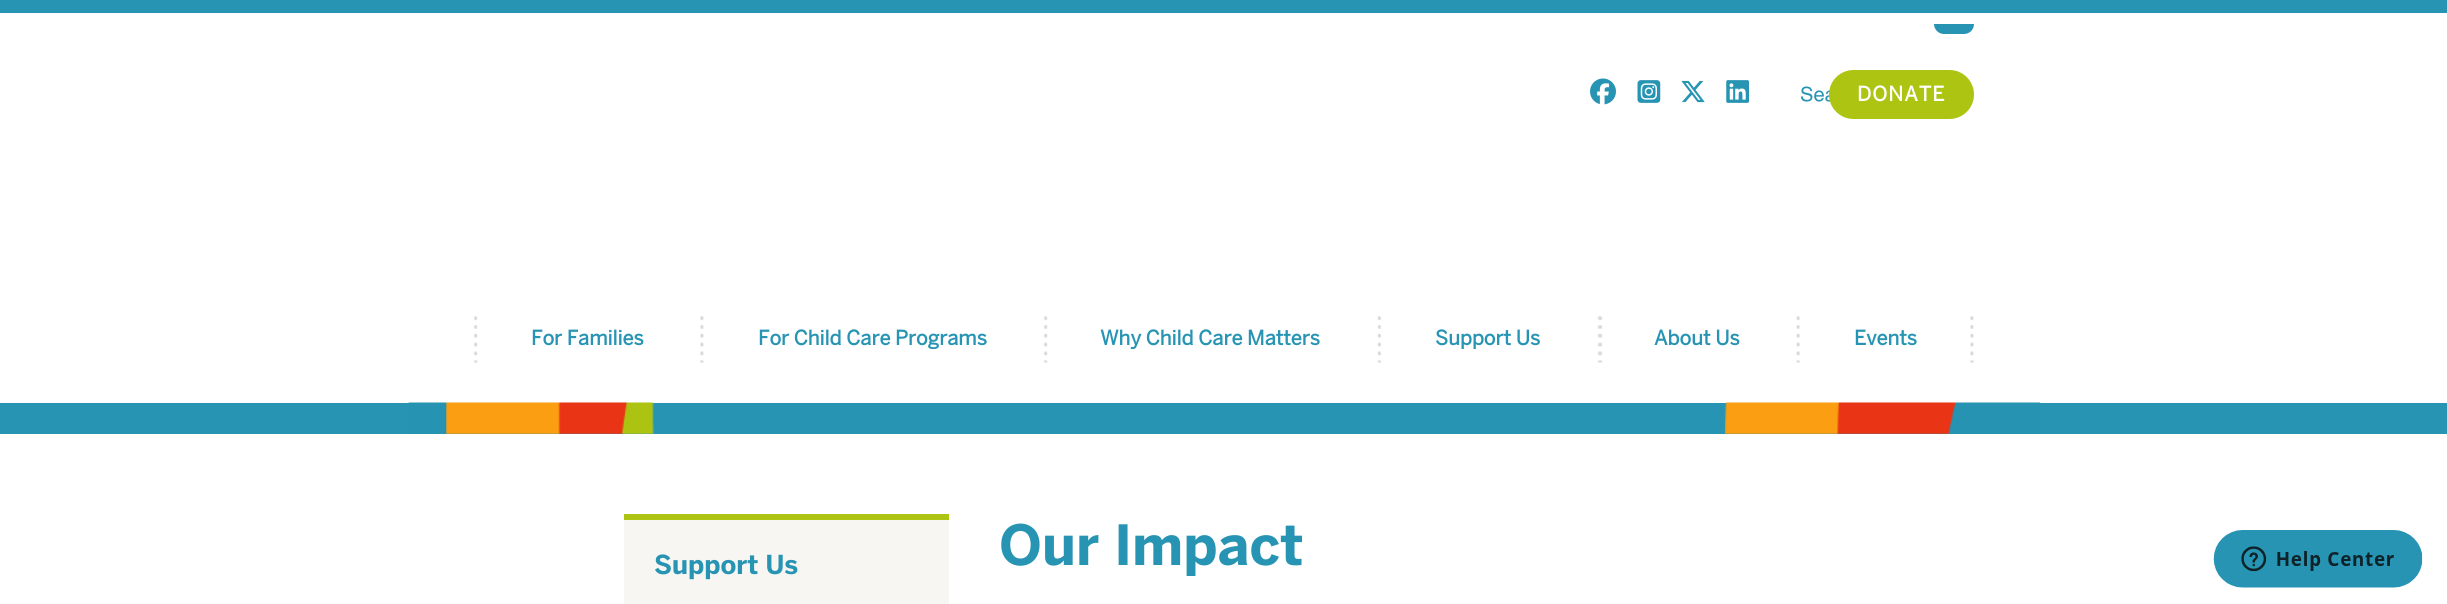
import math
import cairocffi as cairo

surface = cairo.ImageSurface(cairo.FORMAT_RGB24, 2447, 604)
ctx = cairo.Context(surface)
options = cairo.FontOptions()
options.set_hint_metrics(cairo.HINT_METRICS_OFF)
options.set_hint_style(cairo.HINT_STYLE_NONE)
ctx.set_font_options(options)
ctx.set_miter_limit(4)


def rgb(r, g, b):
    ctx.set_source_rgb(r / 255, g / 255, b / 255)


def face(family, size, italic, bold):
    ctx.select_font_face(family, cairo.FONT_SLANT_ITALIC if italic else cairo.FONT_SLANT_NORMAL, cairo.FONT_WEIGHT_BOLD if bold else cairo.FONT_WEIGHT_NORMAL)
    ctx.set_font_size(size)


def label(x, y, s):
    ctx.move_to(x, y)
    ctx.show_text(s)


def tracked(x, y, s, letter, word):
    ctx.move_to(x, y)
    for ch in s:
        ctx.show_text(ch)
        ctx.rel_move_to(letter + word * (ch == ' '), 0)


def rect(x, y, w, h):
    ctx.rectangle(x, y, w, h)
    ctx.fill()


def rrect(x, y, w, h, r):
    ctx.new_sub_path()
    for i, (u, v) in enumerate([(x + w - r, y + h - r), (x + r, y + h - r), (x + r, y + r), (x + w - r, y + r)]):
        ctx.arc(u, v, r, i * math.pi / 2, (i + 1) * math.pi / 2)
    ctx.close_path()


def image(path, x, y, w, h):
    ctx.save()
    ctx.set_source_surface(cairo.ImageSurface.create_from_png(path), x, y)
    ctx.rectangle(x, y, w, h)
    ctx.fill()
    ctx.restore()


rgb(255, 255, 255)
ctx.paint()
rgb(39, 148, 179)
rect(0, 0, 2447, 13)
ctx.new_path()
ctx.move_to(1934, 24)
ctx.line_to(1974, 24)
ctx.curve_to(1974, 29.5, 1969.5, 34, 1964, 34)
ctx.line_to(1944, 34)
ctx.curve_to(1938.5, 34, 1934, 29.5, 1934, 24)
ctx.close_path()
ctx.fill()
image('image0.png', 1590, 78, 26, 27)
image('image1.png', 1637, 80, 24, 23)
image('image2.png', 1681, 80, 24, 23)
image('image3.png', 1726, 80, 23, 23)
image('image4.png', 1801, 86, 30, 16)
rgb(173, 197, 18)
rrect(1829, 70, 145, 49, 24.5)
ctx.fill()
face('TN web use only', 20, 0, 1)
rgb(255, 255, 255)
tracked(1857, 101, 'DONATE', 1, 0)
image('image5.png', 473, 316, 5, 47)
rgb(39, 148, 179)
label(531, 345, 'For Families')
image('image6.png', 700, 316, 4, 47)
label(758, 345, 'For Child Care Programs')
image('image5.png', 1043, 316, 5, 47)
label(1100, 345, 'Why Child Care Matters')
image('image7.png', 1377, 316, 5, 47)
label(1435, 345, 'Support Us')
image('image8.png', 1597, 316, 6, 47)
label(1654, 345, 'About Us')
image('image9.png', 1796, 316, 178, 47)
label(1854, 345, 'Events')
rect(0, 403, 2447, 31)
image('image10.png', 408, 402, 1632, 32)
rgb(247, 246, 243)
rect(624, 520, 325, 84)
rgb(173, 197, 18)
rect(624, 514, 325, 6)
face('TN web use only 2', 26, 0, 1)
rgb(39, 148, 179)
label(654, 574, 'Support Us')
face('TN web use only 2', 55, 0, 1)
label(999, 565, 'Our Impact')
image('image11.png', 2213, 530, 210, 58)
surface.write_to_png('render.png')
